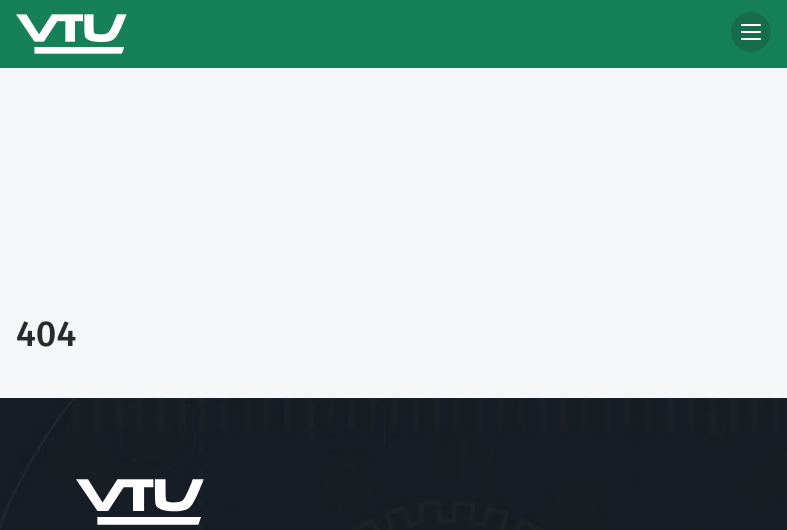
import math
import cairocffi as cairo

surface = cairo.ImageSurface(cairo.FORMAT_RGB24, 787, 530)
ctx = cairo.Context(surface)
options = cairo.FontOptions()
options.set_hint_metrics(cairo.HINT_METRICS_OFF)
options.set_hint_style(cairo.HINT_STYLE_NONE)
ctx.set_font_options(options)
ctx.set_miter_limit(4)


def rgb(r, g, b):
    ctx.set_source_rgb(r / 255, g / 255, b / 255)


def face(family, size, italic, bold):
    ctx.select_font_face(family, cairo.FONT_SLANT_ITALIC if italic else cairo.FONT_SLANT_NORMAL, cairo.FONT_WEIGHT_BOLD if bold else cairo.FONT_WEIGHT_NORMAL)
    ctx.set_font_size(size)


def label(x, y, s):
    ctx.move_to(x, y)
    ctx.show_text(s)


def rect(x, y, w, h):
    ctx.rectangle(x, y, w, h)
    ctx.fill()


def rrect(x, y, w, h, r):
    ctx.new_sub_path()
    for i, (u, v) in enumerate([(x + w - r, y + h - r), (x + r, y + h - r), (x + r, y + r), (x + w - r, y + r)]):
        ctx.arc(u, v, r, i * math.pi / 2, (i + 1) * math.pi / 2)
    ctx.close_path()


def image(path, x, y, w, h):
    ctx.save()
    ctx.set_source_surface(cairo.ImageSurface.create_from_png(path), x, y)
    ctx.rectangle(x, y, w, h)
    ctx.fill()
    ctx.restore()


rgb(255, 255, 255)
ctx.paint()
rgb(22, 129, 89)
rect(0, 0, 787, 68)
image('image0.png', 16, 14, 111, 40)
rgb(22, 109, 78)
ctx.arc(751, 32, 20, 0, 2 * math.pi)
ctx.fill()
rgb(255, 255, 255)
rrect(741, 24, 20, 2, 1)
ctx.fill()
rrect(741, 31, 20, 2, 1)
ctx.fill()
rrect(741, 38, 20, 2, 1)
ctx.fill()
rgb(245, 246, 248)
rect(0, 68, 787, 330)
face('Fira Sans Medium', 36, 0, 0)
rgb(42, 42, 42)
label(16, 346, '404')
image('image1.png', 0, 398, 787, 132)
image('image2.png', 76, 479, 128, 46)
surface.write_to_png('render.png')
